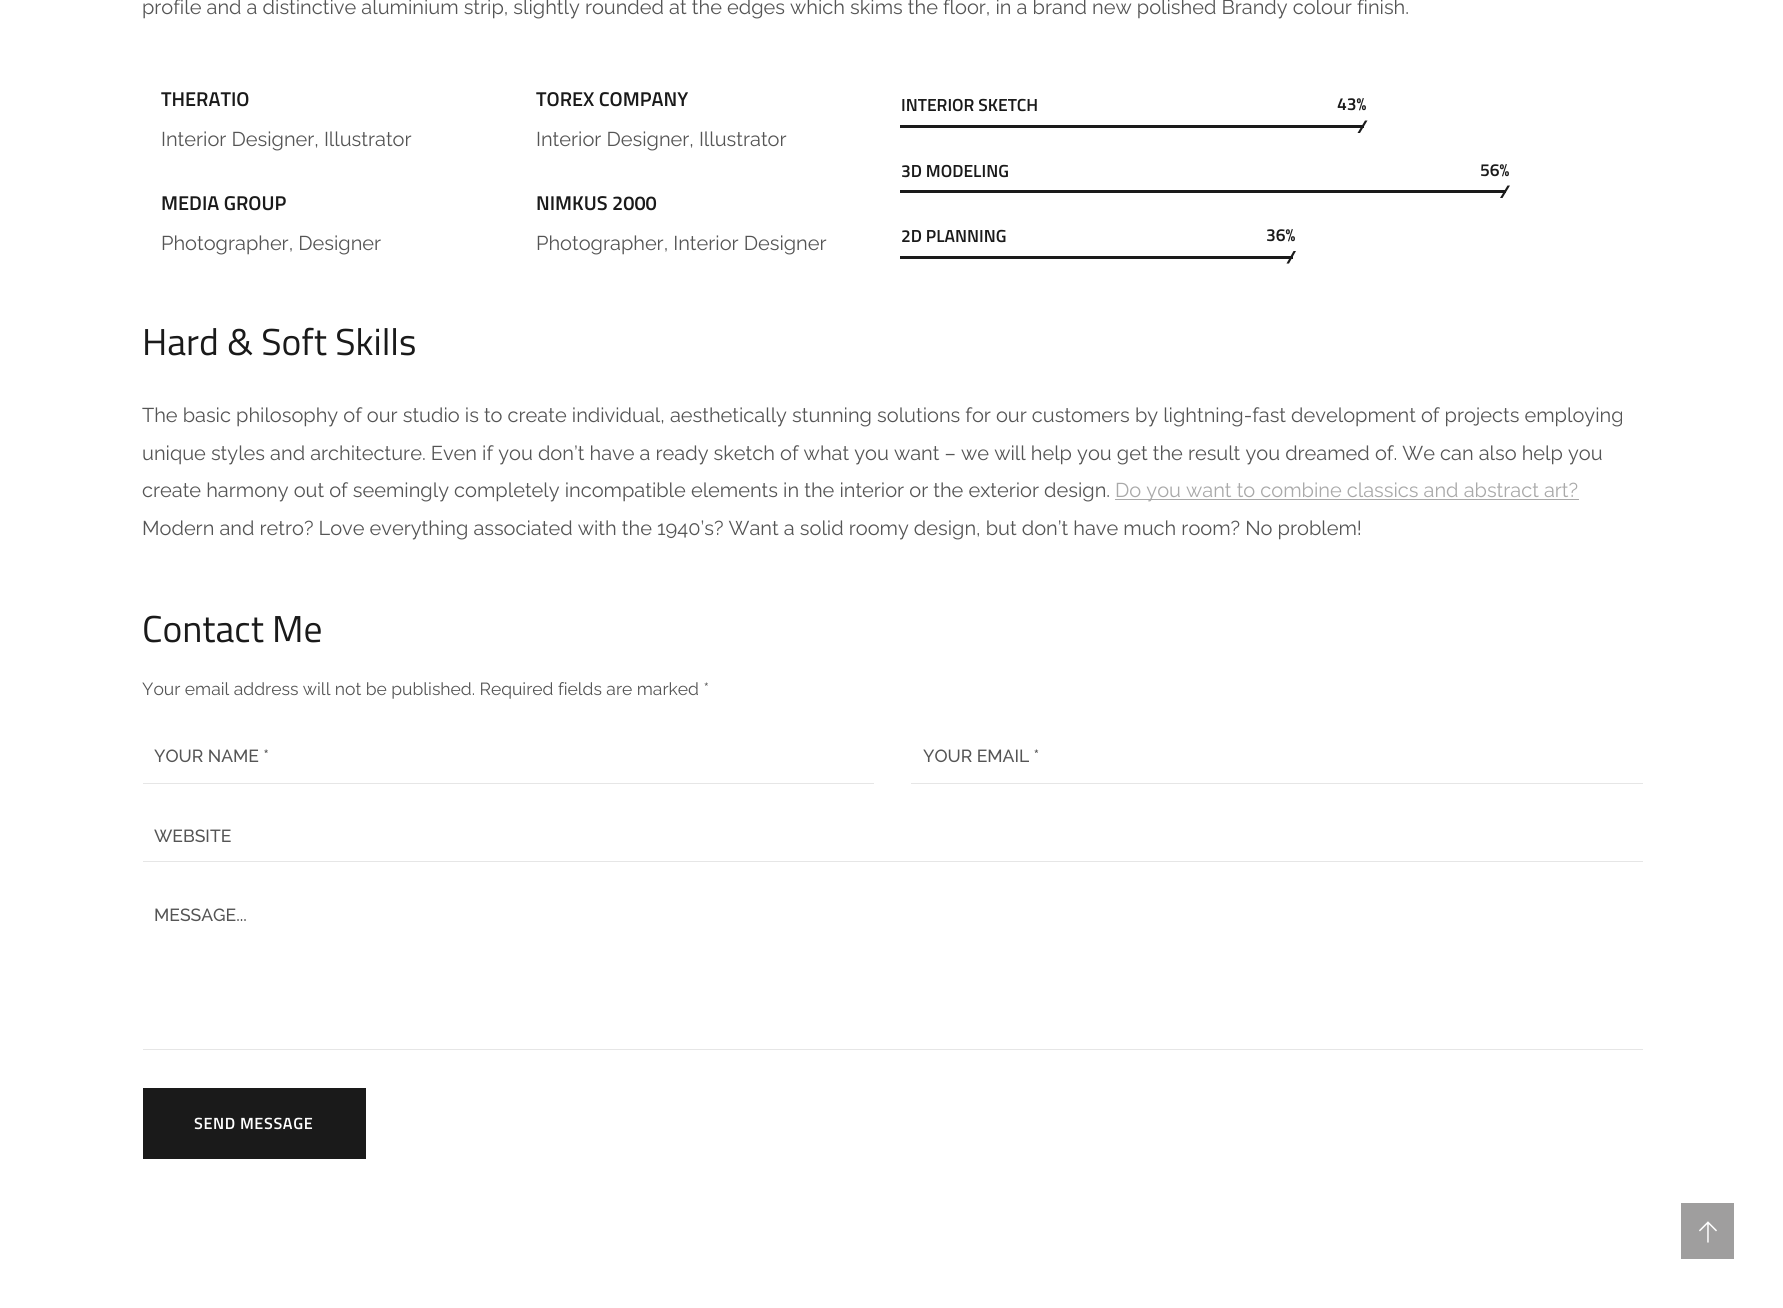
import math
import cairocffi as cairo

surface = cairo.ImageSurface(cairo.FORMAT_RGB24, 1783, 1308)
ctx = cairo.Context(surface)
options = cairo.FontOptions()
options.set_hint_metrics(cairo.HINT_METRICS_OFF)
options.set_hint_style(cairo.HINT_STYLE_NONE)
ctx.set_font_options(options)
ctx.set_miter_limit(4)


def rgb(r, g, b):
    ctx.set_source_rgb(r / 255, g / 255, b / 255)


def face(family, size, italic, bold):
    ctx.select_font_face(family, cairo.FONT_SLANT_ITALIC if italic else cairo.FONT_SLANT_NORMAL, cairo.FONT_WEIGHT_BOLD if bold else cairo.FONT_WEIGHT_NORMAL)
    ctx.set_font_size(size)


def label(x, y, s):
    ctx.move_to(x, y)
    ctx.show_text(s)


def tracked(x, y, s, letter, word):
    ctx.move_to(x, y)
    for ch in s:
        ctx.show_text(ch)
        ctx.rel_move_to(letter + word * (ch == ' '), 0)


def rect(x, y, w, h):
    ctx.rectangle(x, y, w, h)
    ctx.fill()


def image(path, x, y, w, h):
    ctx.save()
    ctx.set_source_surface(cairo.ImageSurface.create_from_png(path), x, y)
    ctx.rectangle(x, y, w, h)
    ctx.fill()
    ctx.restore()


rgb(255, 255, 255)
ctx.paint()
face('Raleway', 20, 0, 0)
rgb(85, 85, 85)
label(142, 14, 'profile and a distinctive aluminium strip, slightly rounded at the edges which skims the floor, in a brand new polished Brandy colour finish.')
face('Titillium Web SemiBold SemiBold', 20, 0, 0)
rgb(26, 26, 26)
label(161, 106, 'THERATIO')
face('Raleway', 20, 0, 0)
rgb(85, 85, 85)
label(161, 146, 'Interior Designer, Illustrator')
face('Titillium Web SemiBold SemiBold', 20, 0, 0)
rgb(26, 26, 26)
label(161, 210, 'MEDIA GROUP')
face('Raleway', 20, 0, 0)
rgb(85, 85, 85)
label(161, 250, 'Photographer, Designer')
face('Titillium Web SemiBold SemiBold', 20, 0, 0)
rgb(26, 26, 26)
label(536, 106, 'TOREX COMPANY')
face('Raleway', 20, 0, 0)
rgb(85, 85, 85)
label(536, 146, 'Interior Designer, Illustrator')
face('Titillium Web SemiBold SemiBold', 20, 0, 0)
rgb(26, 26, 26)
label(536, 210, 'NIMKUS 2000')
face('Raleway', 20, 0, 0)
rgb(85, 85, 85)
label(536, 250, 'Photographer, Interior Designer')
face('Titillium Web SemiBold SemiBold', 17.5, 0, 0)
rgb(26, 26, 26)
label(901, 111, 'INTERIOR SKETCH')
rect(900, 125, 464, 3)
label(1337, 110, '43%')
ctx.new_path()
ctx.move_to(1365, 120.5)
ctx.line_to(1367.5, 120.5)
ctx.line_to(1360, 133)
ctx.line_to(1357.5, 133)
ctx.close_path()
ctx.fill()
label(901, 177, '3D MODELING')
rect(900, 190, 606, 3)
label(1480, 176, '56%')
ctx.new_path()
ctx.move_to(1507.5, 185.5)
ctx.line_to(1510, 185.5)
ctx.line_to(1502.5, 198)
ctx.line_to(1500, 198)
ctx.close_path()
ctx.fill()
label(901, 242, '2D PLANNING')
rect(900, 256, 393, 3)
label(1266, 241, '36%')
ctx.new_path()
ctx.move_to(1293.5, 251)
ctx.line_to(1296, 251)
ctx.line_to(1289, 263.5)
ctx.line_to(1286.5, 263.5)
ctx.close_path()
ctx.fill()
face('Titillium Web', 37.5, 0, 0)
label(142, 355, 'Hard & Soft Skills')
face('Raleway', 20, 0, 0)
rgb(85, 85, 85)
label(142, 422, 'The basic philosophy of our studio is to create individual, aesthetically stunning solutions for our customers by lightning-fast development of projects employing')
label(142, 460, 'unique styles and architecture. Even if you don’t have a ready sketch of what you want – we will help you get the result you dreamed of. We can also help you')
label(142, 497, 'create harmony out of seemingly completely incompatible elements in the interior or the exterior design.')
rgb(169, 169, 169)
rect(1115, 499, 464, 1)
label(1115, 497, 'Do you want to combine classics and abstract art?')
rgb(85, 85, 85)
label(142, 535, 'Modern and retro? Love everything associated with the 1940’s? Want a solid roomy design, but don’t have much room? No problem!')
face('Titillium Web', 37.5, 0, 0)
rgb(26, 26, 26)
label(142, 642, 'Contact Me')
face('Raleway', 17.5, 0, 0)
rgb(85, 85, 85)
label(142, 695, 'Your email address will not be published. Required fields are marked *')
rgb(230, 230, 230)
rect(143, 783, 731, 1)
face('Raleway Medium', 17.5, 0, 0)
rgb(85, 85, 85)
label(154, 762, 'YOUR NAME *')
rgb(230, 230, 230)
rect(911, 783, 732, 1)
rgb(85, 85, 85)
label(923, 762, 'YOUR EMAIL *')
rgb(230, 230, 230)
rect(143, 861, 1500, 1)
rgb(85, 85, 85)
label(154, 842, 'WEBSITE')
rgb(230, 230, 230)
rect(143, 1049, 1500, 1)
rgb(85, 85, 85)
label(154, 921, 'MESSAGE...')
rgb(26, 26, 26)
rect(143, 1088, 223, 71)
face('Titillium Web SemiBold SemiBold', 16.25, 0, 0)
rgb(255, 255, 255)
tracked(194, 1129, 'SEND MESSAGE', 0.6, 0)
rgb(159, 158, 158)
rect(1681, 1203, 53, 56)
image('image0.png', 1699, 1221, 18, 22)
surface.write_to_png('render.png')
